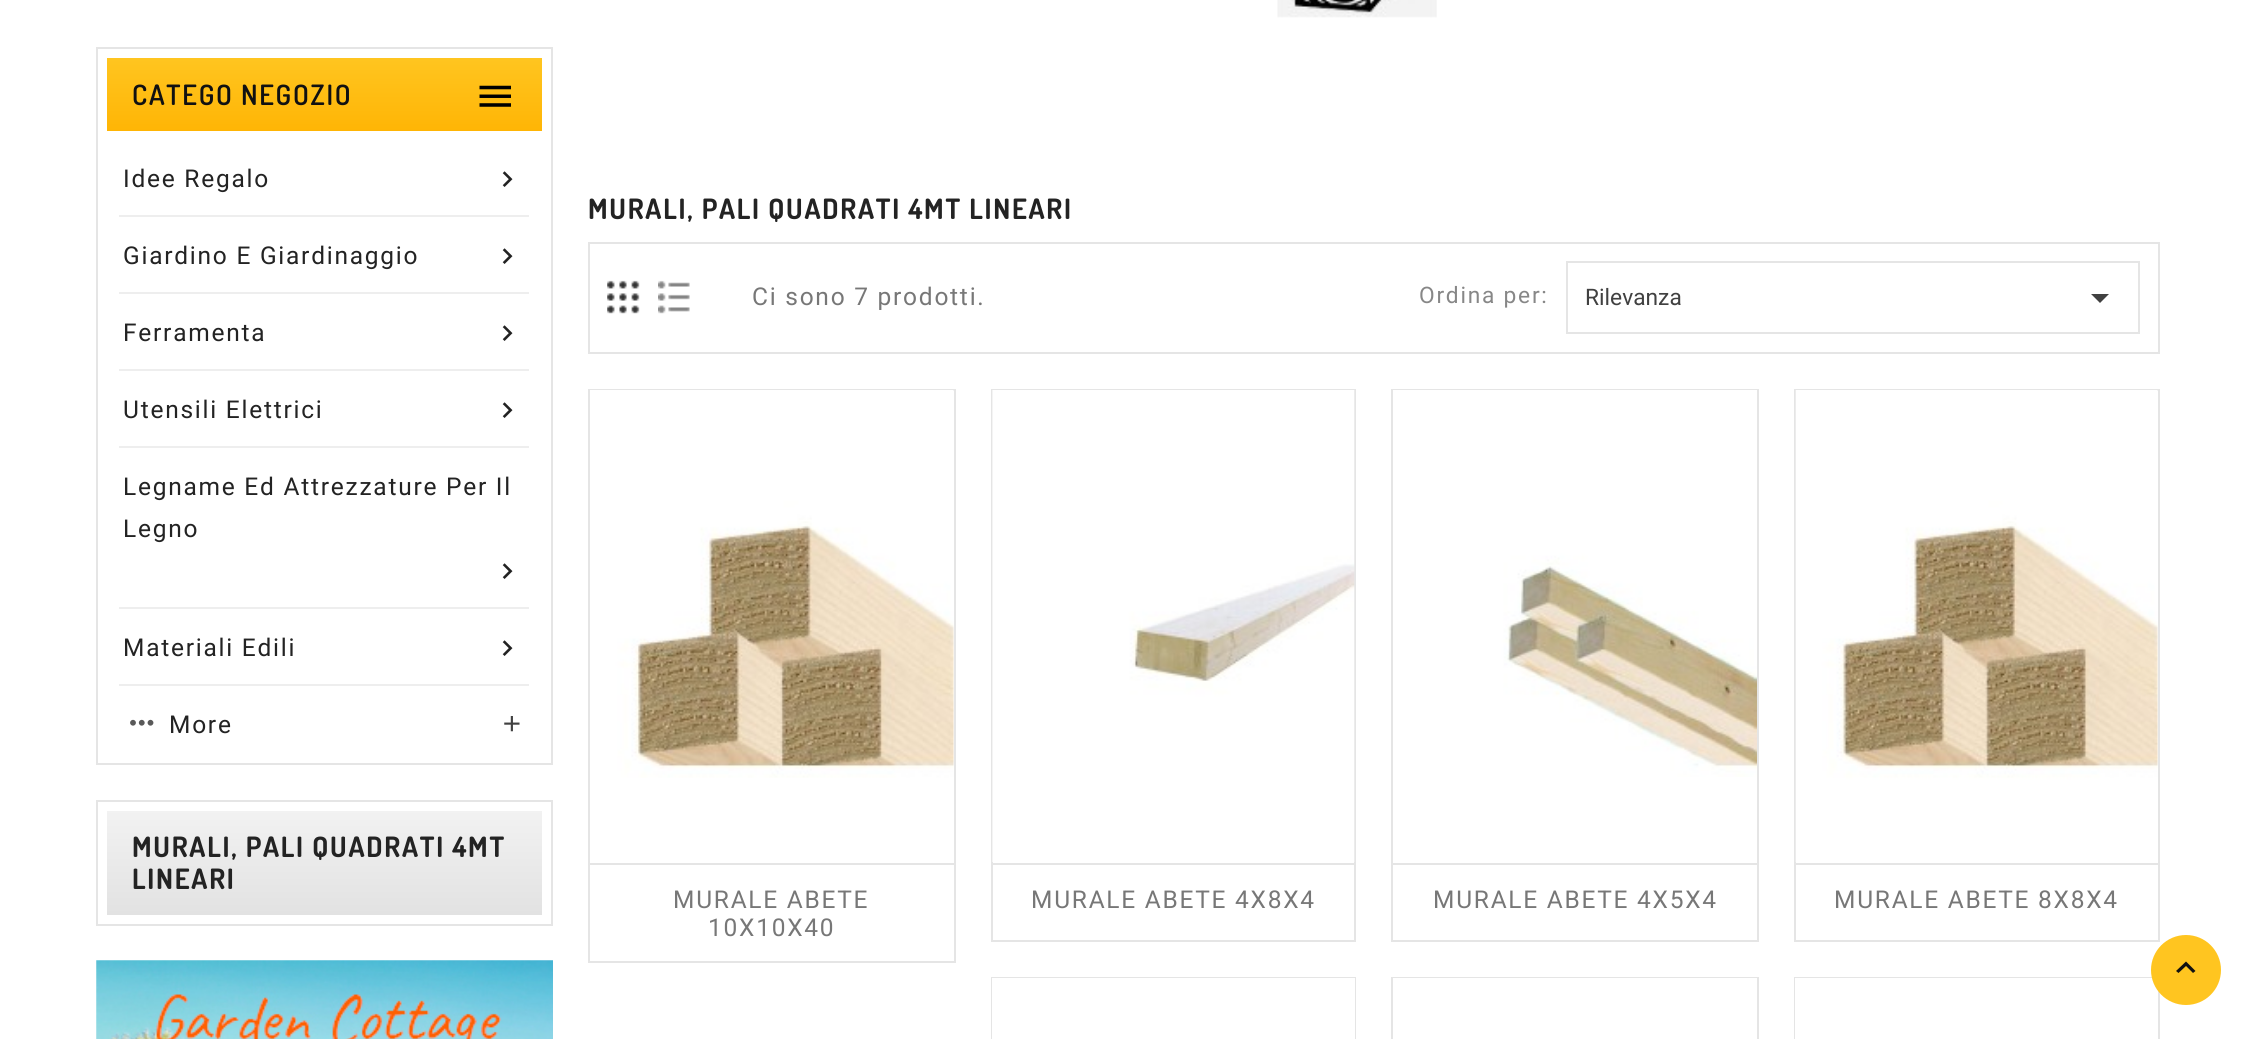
import math
import cairocffi as cairo

surface = cairo.ImageSurface(cairo.FORMAT_RGB24, 2255, 1039)
ctx = cairo.Context(surface)
options = cairo.FontOptions()
options.set_hint_metrics(cairo.HINT_METRICS_OFF)
options.set_hint_style(cairo.HINT_STYLE_NONE)
ctx.set_font_options(options)
ctx.set_miter_limit(4)


def rgb(r, g, b):
    ctx.set_source_rgb(r / 255, g / 255, b / 255)


def face(family, size, italic, bold):
    ctx.select_font_face(family, cairo.FONT_SLANT_ITALIC if italic else cairo.FONT_SLANT_NORMAL, cairo.FONT_WEIGHT_BOLD if bold else cairo.FONT_WEIGHT_NORMAL)
    ctx.set_font_size(size)


def label(x, y, s):
    ctx.move_to(x, y)
    ctx.show_text(s)


def tracked(x, y, s, letter, word):
    ctx.move_to(x, y)
    for ch in s:
        ctx.show_text(ch)
        ctx.rel_move_to(letter + word * (ch == ' '), 0)


def rect(x, y, w, h):
    ctx.rectangle(x, y, w, h)
    ctx.fill()


def image(path, x, y, w, h):
    ctx.save()
    ctx.set_source_surface(cairo.ImageSurface.create_from_png(path), x, y)
    ctx.rectangle(x, y, w, h)
    ctx.fill()
    ctx.restore()


rgb(255, 255, 255)
ctx.paint()
ctx.rectangle(97, 48, 455, 716)
rgb(229, 229, 229)
ctx.stroke()
gradient = cairo.LinearGradient(325, 58, 325, 131)
gradient.add_color_stop_rgba(0, 1, 0.773, 0.125, 1)
gradient.add_color_stop_rgba(1, 1, 0.71, 0.02, 1)
ctx.set_source(gradient)
rect(107, 58, 435, 73)
face('Dosis SemiBold', 28, 0, 0)
rgb(17, 17, 17)
tracked(132, 105, 'CATEGO NEGOZIO', 1.75, 0)
image('image0.png', 479, 85, 32, 22)
face('Roboto', 24.5, 0, 0)
rgb(35, 35, 35)
tracked(123, 187, 'Idee Regalo', 1.75, 0)
image('image1.png', 502, 171, 11, 16)
rgb(238, 238, 238)
rect(119, 215, 410, 2)
rgb(35, 35, 35)
tracked(123, 264, 'Giardino E Giardinaggio', 1.75, 0)
image('image1.png', 502, 248, 11, 16)
rgb(238, 238, 238)
rect(119, 292, 410, 2)
rgb(35, 35, 35)
tracked(123, 341, 'Ferramenta', 1.75, 0)
image('image1.png', 502, 325, 11, 16)
rgb(238, 238, 238)
rect(119, 369, 410, 2)
rgb(35, 35, 35)
tracked(123, 418, 'Utensili Elettrici', 1.75, 0)
image('image1.png', 502, 402, 11, 16)
rgb(238, 238, 238)
rect(119, 446, 410, 2)
rgb(35, 35, 35)
tracked(123, 495, 'Legname Ed Attrezzature Per Il', 1.75, 0)
tracked(123, 537, 'Legno', 1.75, 0)
image('image1.png', 502, 563, 11, 16)
rgb(238, 238, 238)
rect(119, 607, 410, 2)
rgb(35, 35, 35)
tracked(123, 656, 'Materiali Edili', 1.75, 0)
image('image1.png', 502, 640, 11, 16)
rgb(238, 238, 238)
rect(119, 684, 410, 2)
image('image2.png', 130, 719, 24, 7)
rgb(35, 35, 35)
tracked(169, 733, 'More', 1.75, 0)
image('image3.png', 504, 716, 16, 16)
ctx.rectangle(97, 801, 455, 124)
rgb(229, 229, 229)
ctx.stroke()
gradient = cairo.LinearGradient(325, 810, 325, 915)
gradient.add_color_stop_rgba(0, 0.949, 0.949, 0.949, 1)
gradient.add_color_stop_rgba(1, 0.886, 0.886, 0.886, 1)
ctx.set_source(gradient)
rect(107, 811, 435, 104)
face('Dosis', 28, 0, 1)
rgb(35, 35, 35)
tracked(132, 857, 'MURALI, PALI QUADRATI 4MT', 1.75, 0)
tracked(132, 889, 'LINEARI', 1.75, 0)
image('image4.png', 96, 960, 457, 79)
image('image5.png', 1277, 0, 160, 18)
tracked(588, 219, 'MURALI, PALI QUADRATI 4MT LINEARI', 1.75, 0)
ctx.rectangle(589, 243, 1570, 110)
rgb(229, 229, 229)
ctx.stroke()
image('image6.png', 607, 280, 33, 34)
image('image7.png', 658, 280, 32, 34)
face('Roboto', 24.5, 0, 0)
rgb(119, 119, 119)
tracked(752, 305, 'Ci sono 7 prodotti.', 1.75, 0)
face('Roboto', 22.75, 0, 0)
rgb(135, 135, 135)
tracked(1419, 303, 'Ordina per:', 1.75, 0)
ctx.rectangle(1567, 262, 572, 71)
rgb(229, 229, 229)
ctx.stroke()
rgb(65, 65, 65)
label(1585, 305, 'Rilevanza')
ctx.new_path()
ctx.move_to(2091, 294)
ctx.line_to(2109, 294)
ctx.line_to(2100, 303)
ctx.close_path()
ctx.fill()
ctx.rectangle(589, 390, 366, 572)
rgb(229, 229, 229)
ctx.stroke()
image('image8.png', 590, 390, 364, 388)
rect(590, 863, 364, 2)
face('Roboto', 24.5, 0, 0)
rgb(119, 119, 119)
tracked(673, 908, 'MURALE ABETE', 1.75, 0)
tracked(708, 936, '10X10X40', 1.75, 0)
ctx.rectangle(992, 390, 363, 551)
rgb(229, 229, 229)
ctx.stroke()
image('image9.png', 992, 390, 363, 472)
rect(992, 863, 363, 2)
rgb(119, 119, 119)
tracked(1031, 908, 'MURALE ABETE 4X8X4', 1.75, 0)
ctx.rectangle(1392, 390, 366, 551)
rgb(229, 229, 229)
ctx.stroke()
image('image10.png', 1393, 390, 364, 387)
rect(1393, 863, 364, 2)
rgb(119, 119, 119)
tracked(1433, 908, 'MURALE ABETE 4X5X4', 1.75, 0)
ctx.rectangle(1795, 390, 364, 551)
rgb(229, 229, 229)
ctx.stroke()
image('image11.png', 1795, 390, 363, 472)
rect(1796, 863, 362, 2)
rgb(119, 119, 119)
tracked(1834, 908, 'MURALE ABETE 8X8X4', 1.75, 0)
ctx.rectangle(992, 978, 363, 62)
rgb(229, 229, 229)
ctx.stroke()
rgb(255, 255, 255)
rect(992, 978, 363, 61)
ctx.rectangle(1392, 978, 366, 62)
rgb(229, 229, 229)
ctx.stroke()
rgb(255, 255, 255)
rect(1393, 978, 364, 1)
ctx.rectangle(1795, 978, 364, 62)
rgb(229, 229, 229)
ctx.stroke()
rgb(255, 255, 255)
rect(1795, 978, 363, 61)
rgb(255, 197, 32)
ctx.arc(2186, 970, 35, 0, 2 * math.pi)
ctx.fill()
rgb(17, 17, 17)
ctx.new_path()
ctx.move_to(2178.5, 973)
ctx.line_to(2176, 971)
ctx.line_to(2186, 961.5)
ctx.line_to(2195.5, 971)
ctx.line_to(2193, 973)
ctx.line_to(2186, 966)
ctx.close_path()
ctx.fill()
surface.write_to_png('render.png')
